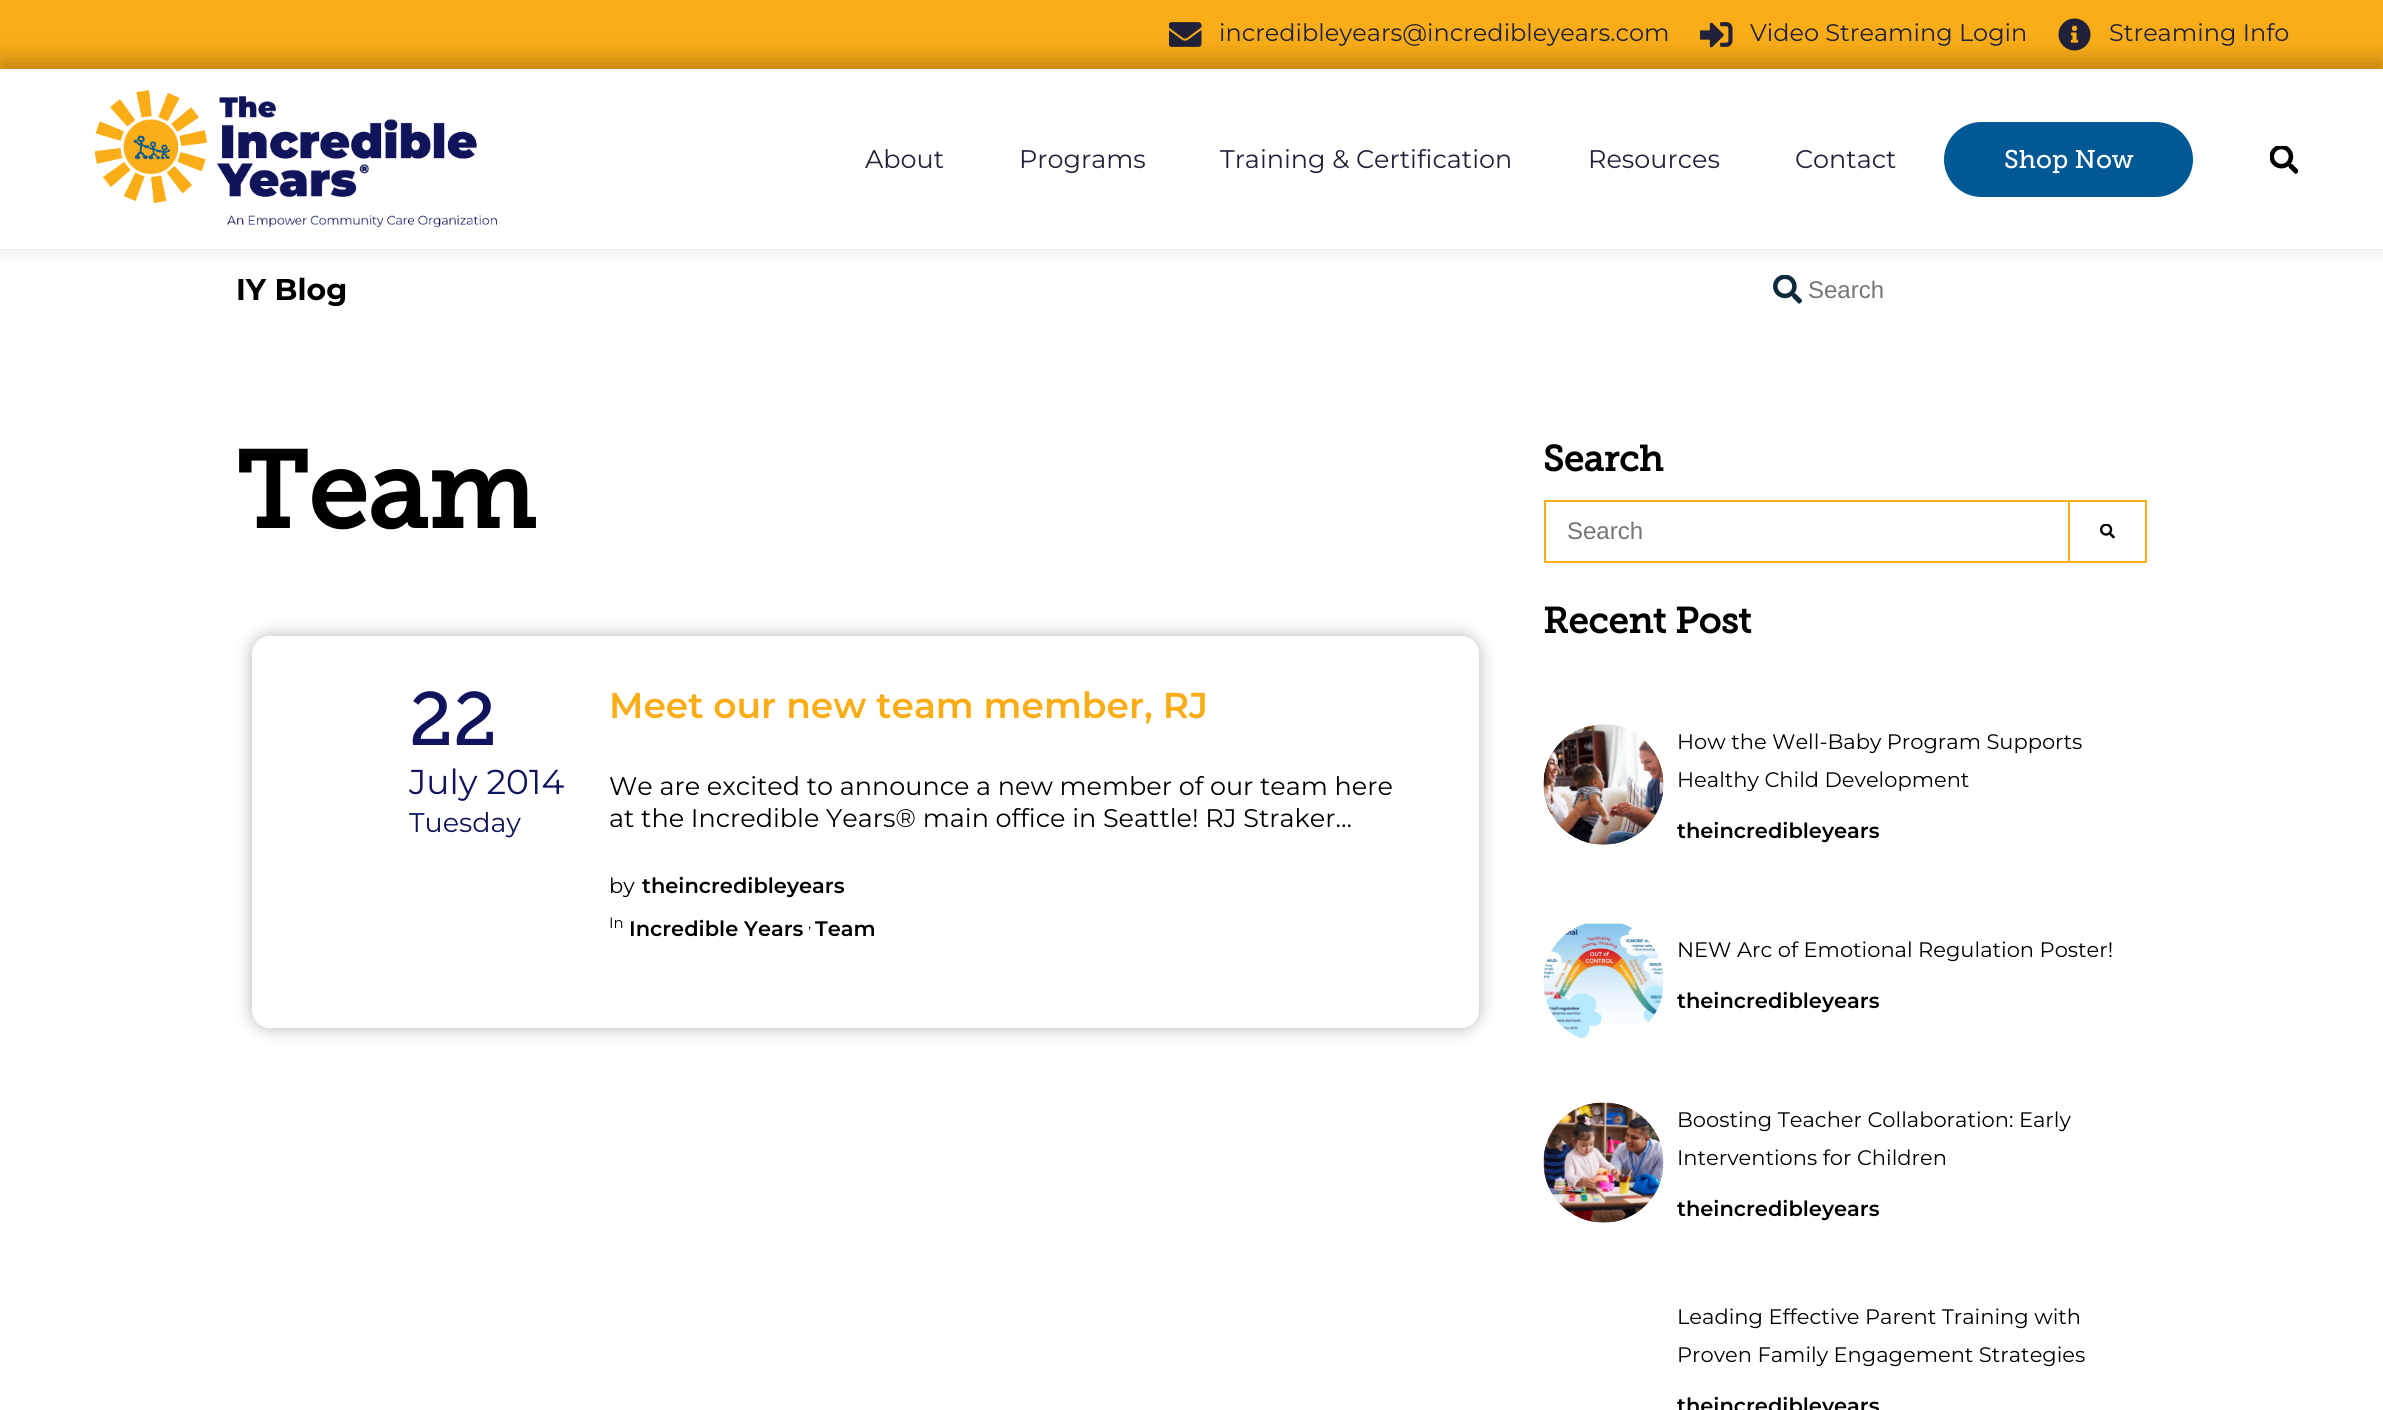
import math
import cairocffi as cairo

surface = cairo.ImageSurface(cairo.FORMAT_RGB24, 2383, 1410)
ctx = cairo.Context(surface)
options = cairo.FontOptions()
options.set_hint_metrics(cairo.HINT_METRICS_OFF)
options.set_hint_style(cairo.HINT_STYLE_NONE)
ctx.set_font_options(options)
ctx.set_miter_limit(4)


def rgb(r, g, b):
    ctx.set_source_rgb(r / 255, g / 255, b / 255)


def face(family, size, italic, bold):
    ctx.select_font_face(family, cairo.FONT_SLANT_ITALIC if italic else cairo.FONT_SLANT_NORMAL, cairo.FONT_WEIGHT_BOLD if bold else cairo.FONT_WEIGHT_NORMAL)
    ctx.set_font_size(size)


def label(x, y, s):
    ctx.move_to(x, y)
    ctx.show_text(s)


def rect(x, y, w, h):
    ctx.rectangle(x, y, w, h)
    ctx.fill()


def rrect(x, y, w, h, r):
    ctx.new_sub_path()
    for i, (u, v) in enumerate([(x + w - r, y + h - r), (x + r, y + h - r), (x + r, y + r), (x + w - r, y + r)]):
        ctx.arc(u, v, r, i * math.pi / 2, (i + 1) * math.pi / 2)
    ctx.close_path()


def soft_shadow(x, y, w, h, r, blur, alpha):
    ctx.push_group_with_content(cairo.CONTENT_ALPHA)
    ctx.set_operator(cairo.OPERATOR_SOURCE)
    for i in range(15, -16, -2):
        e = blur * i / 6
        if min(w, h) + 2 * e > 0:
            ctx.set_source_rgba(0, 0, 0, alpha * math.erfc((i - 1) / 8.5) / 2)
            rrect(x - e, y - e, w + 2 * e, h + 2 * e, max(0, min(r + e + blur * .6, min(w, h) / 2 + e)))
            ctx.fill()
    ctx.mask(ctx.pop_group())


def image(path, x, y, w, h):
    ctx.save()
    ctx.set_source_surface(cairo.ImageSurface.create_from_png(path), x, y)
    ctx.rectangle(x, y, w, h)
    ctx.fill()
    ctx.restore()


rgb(255, 255, 255)
ctx.paint()
rgb(251, 173, 24)
rect(0, 0, 2383, 69)
image('image0.png', 1169, 22, 33, 25)
face('Montserrat', 24, 0, 0)
rgb(33, 33, 57)
label(1219, 41, 'incredibleyears@incredibleyears.com')
image('image1.png', 1700, 22, 33, 26)
label(1750, 41, 'Video Streaming Login')
image('image2.png', 2058, 18, 33, 33)
label(2109, 41, 'Streaming Info')
image('image5.png', 1773, 275, 29, 29)
ctx.save()
ctx.set_fill_rule(cairo.FILL_RULE_EVEN_ODD)
ctx.new_path()
ctx.move_to(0, 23)
ctx.line_to(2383, 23)
ctx.line_to(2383, 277)
ctx.line_to(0, 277)
ctx.close_path()
ctx.move_to(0, 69)
ctx.line_to(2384, 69)
ctx.line_to(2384, 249)
ctx.line_to(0, 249)
ctx.close_path()
ctx.clip()
rgb(0, 0, 0)
soft_shadow(0, 60, 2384, 180, 0, 12, 0.25)
ctx.restore()
image('image3.png', 95, 90, 402, 138)
face('Montserrat', 25.5, 0, 0)
label(865, 168, 'About')
label(1019, 168, 'Programs')
label(1220, 168, 'Training & Certification')
label(1588, 168, 'Resources')
label(1795, 168, 'Contact')
rgb(0, 88, 149)
rrect(1944, 122, 249, 75, 37.5)
ctx.fill()
face('Museo Slab', 25.5, 0, 0)
rgb(255, 255, 255)
label(2004, 168, 'Shop Now')
image('image4.png', 2270, 146, 28, 28)
face('Montserrat', 30, 0, 1)
rgb(0, 0, 0)
label(236, 300, 'IY Blog')
face('Liberation Sans', 24, 0, 0)
rgb(117, 117, 117)
label(1808, 298, 'Search')
face('Museo Slab', 108, 0, 1)
rgb(0, 0, 0)
label(236, 528, 'Team')
rgb(0, 0, 0)
soft_shadow(252, 636, 1227, 392, 18, 9, 0.29)
rgb(255, 255, 255)
rrect(252, 636, 1227, 392, 18)
ctx.fill()
face('Museo Slab', 75, 0, 0)
rgb(16, 20, 93)
label(409, 745, '22')
face('Montserrat', 34.5, 0, 0)
label(409, 794, 'July 2014')
face('Montserrat', 27, 0, 0)
label(409, 832, 'Tuesday')
face('Montserrat SemiBold', 36, 0, 0)
rgb(251, 173, 24)
label(609, 718, 'Meet our new team member, RJ')
face('Montserrat', 25.5, 0, 0)
rgb(0, 0, 0)
label(609, 795, 'We are excited to announce a new member of our team here')
label(609, 827, 'at the Incredible Years® main office in Seattle! RJ Straker…')
face('Montserrat', 21, 0, 0)
label(609, 893, 'by')
face('Montserrat SemiBold', 21, 0, 0)
label(642, 893, 'theincredibleyears')
face('Montserrat', 15, 0, 0)
label(609, 928, 'In')
face('Montserrat SemiBold', 21, 0, 0)
label(629, 936, 'Incredible Years')
face('Montserrat', 15, 0, 0)
label(808, 928, ',')
face('Montserrat SemiBold', 21, 0, 0)
label(815, 936, 'Team')
face('Museo Slab', 36, 0, 1)
label(1543, 471, 'Search')
ctx.rectangle(1545, 501, 524, 61)
rgb(251, 173, 24)
ctx.stroke()
face('Liberation Sans', 24, 0, 0)
rgb(117, 117, 117)
label(1567, 539, 'Search')
rgb(251, 173, 24)
rect(2070, 500, 77, 2)
rect(2145, 500, 2, 63)
rect(2070, 561, 77, 2)
image('image6.png', 2100, 524, 15, 15)
face('Museo Slab', 36, 0, 1)
rgb(0, 0, 0)
label(1543, 633, 'Recent Post')
image('image7.png', 1543, 724, 121, 121)
image('image8.png', 1543, 725, 121, 120)
face('Montserrat', 21, 0, 0)
label(1677, 749, 'How the Well-Baby Program Supports')
label(1677, 787, 'Healthy Child Development')
face('Montserrat SemiBold', 21, 0, 0)
label(1677, 838, 'theincredibleyears')
image('image9.png', 1543, 923, 121, 116)
image('image10.png', 1543, 923, 120, 116)
face('Montserrat', 21, 0, 0)
label(1677, 957, 'NEW Arc of Emotional Regulation Poster!')
face('Montserrat SemiBold', 21, 0, 0)
label(1677, 1008, 'theincredibleyears')
image('image11.png', 1543, 1102, 121, 121)
image('image12.png', 1543, 1102, 121, 121)
face('Montserrat', 21, 0, 0)
label(1677, 1127, 'Boosting Teacher Collaboration: Early')
label(1677, 1165, 'Interventions for Children')
face('Montserrat SemiBold', 21, 0, 0)
label(1677, 1216, 'theincredibleyears')
face('Montserrat', 21, 0, 0)
label(1677, 1324, 'Leading Effective Parent Training with')
label(1677, 1362, 'Proven Family Engagement Strategies')
face('Montserrat SemiBold', 21, 0, 0)
label(1677, 1413, 'theincredibleyears')
surface.write_to_png('render.png')
